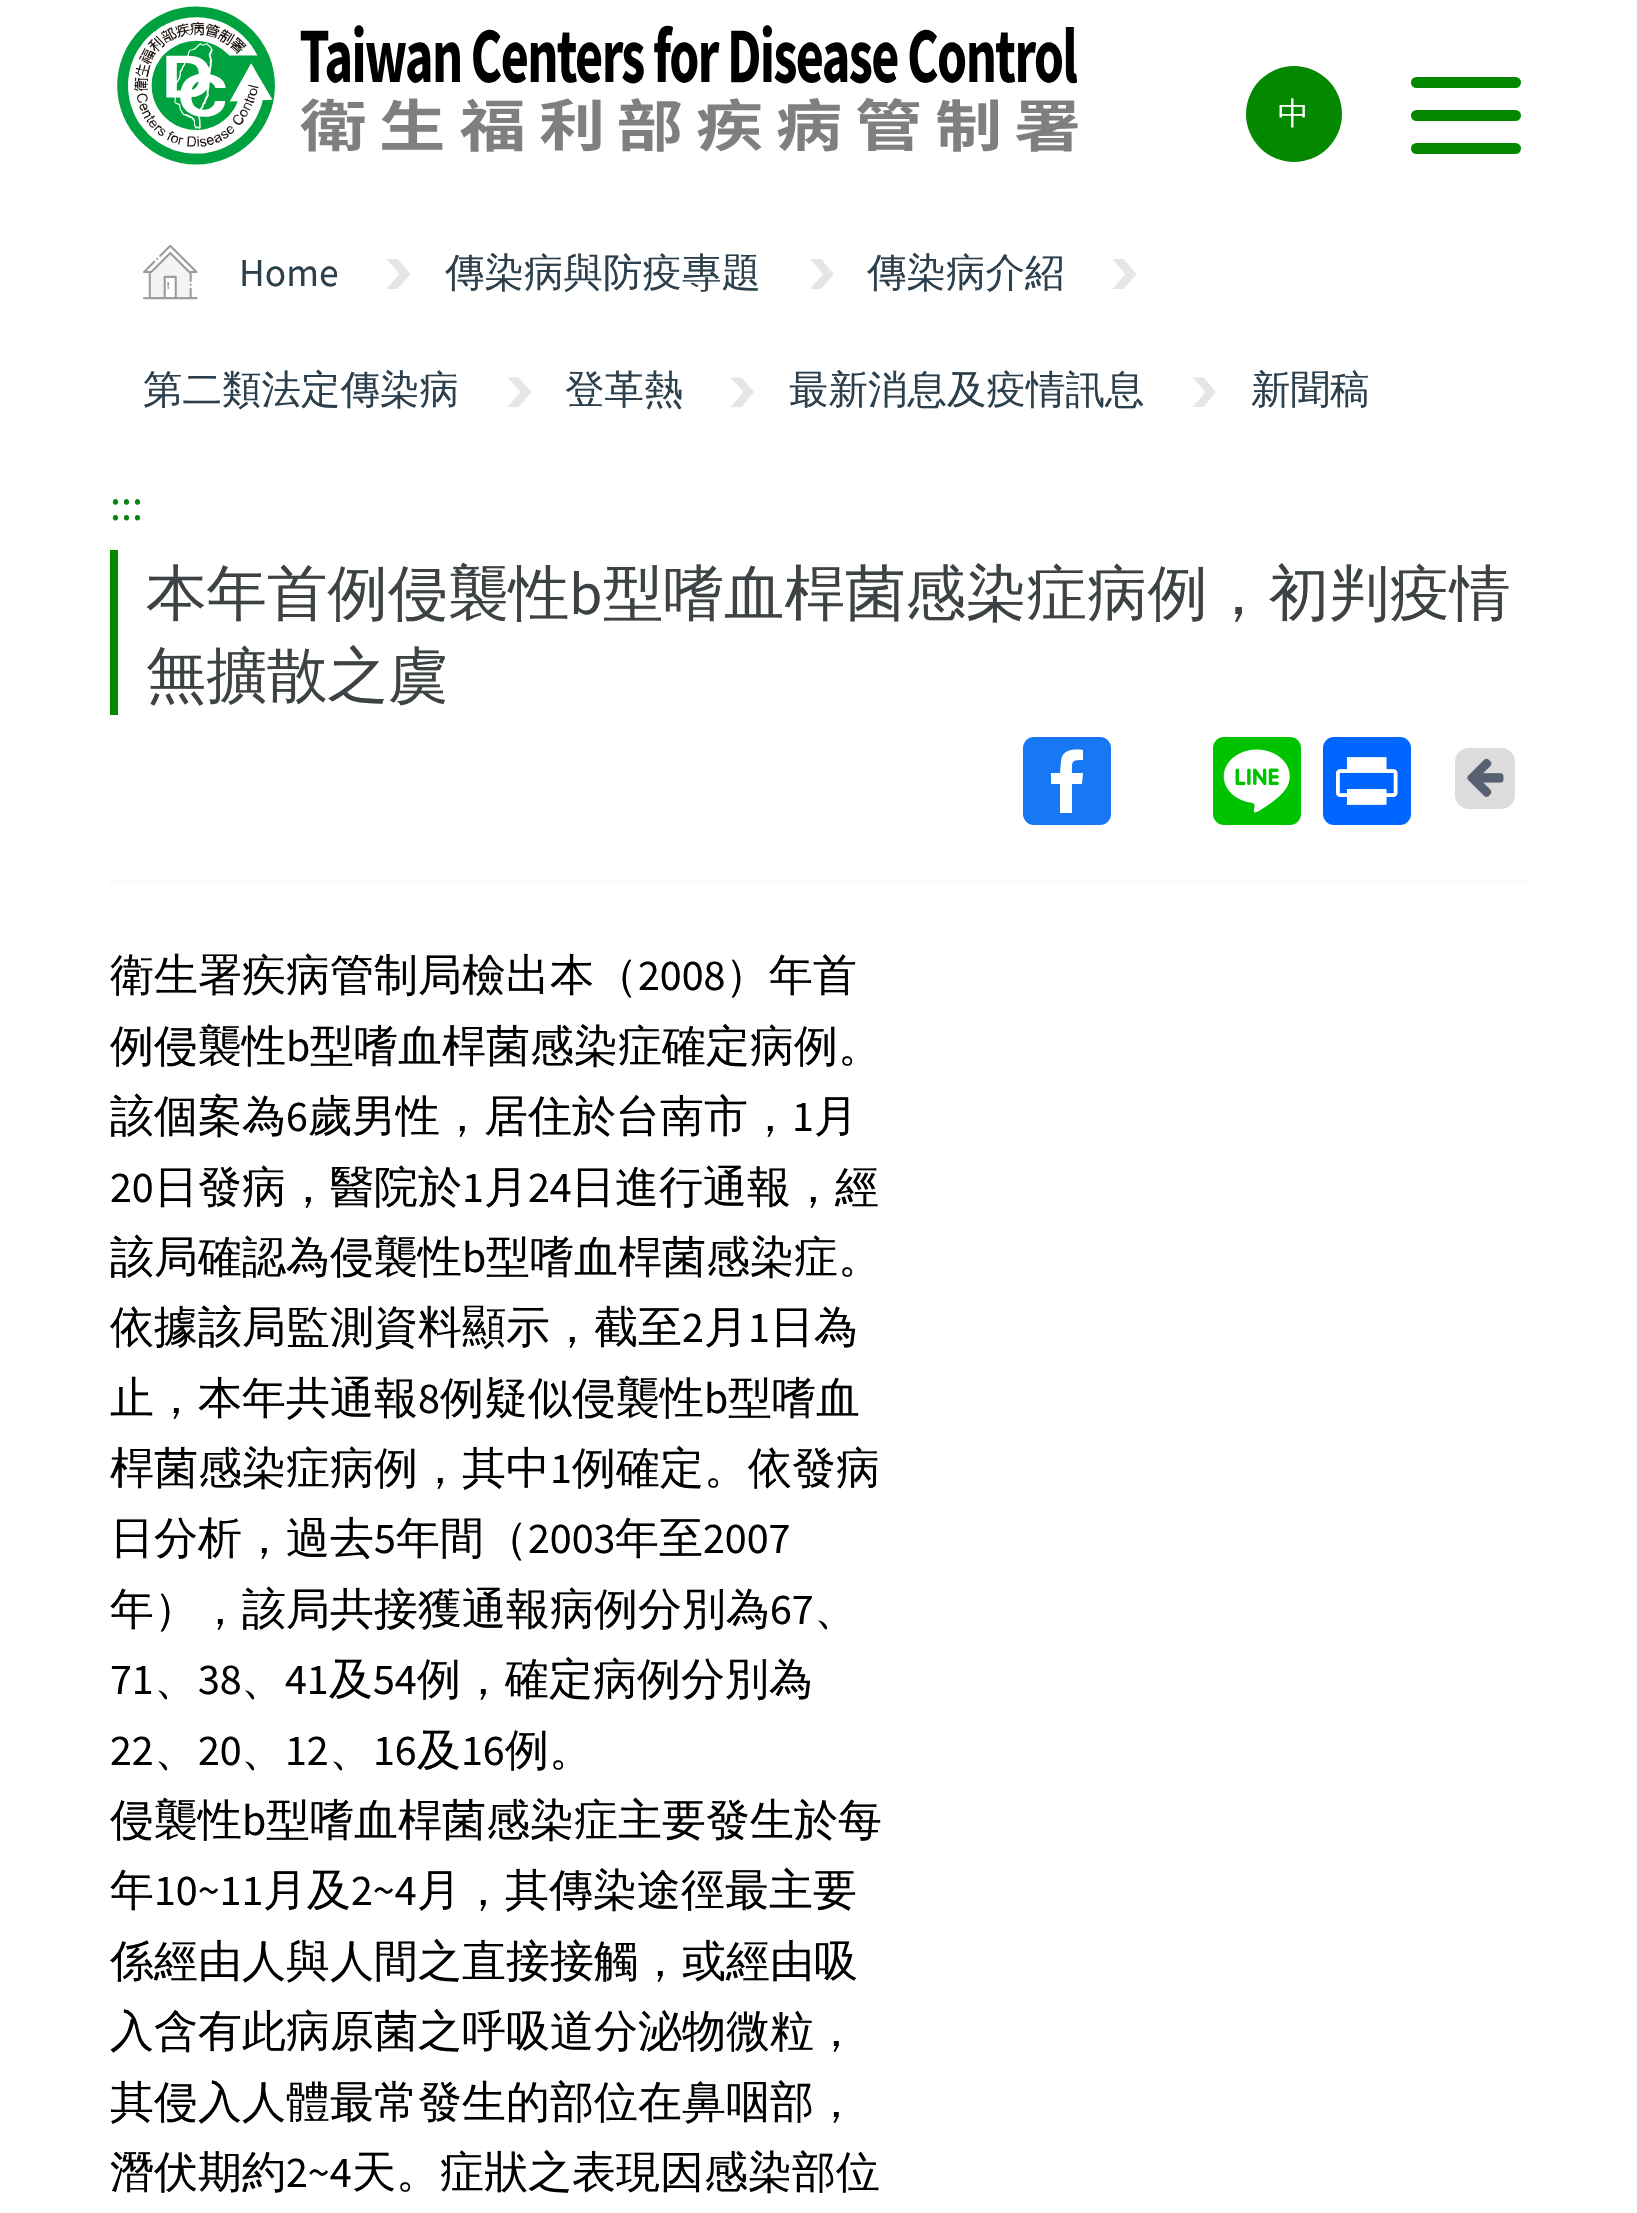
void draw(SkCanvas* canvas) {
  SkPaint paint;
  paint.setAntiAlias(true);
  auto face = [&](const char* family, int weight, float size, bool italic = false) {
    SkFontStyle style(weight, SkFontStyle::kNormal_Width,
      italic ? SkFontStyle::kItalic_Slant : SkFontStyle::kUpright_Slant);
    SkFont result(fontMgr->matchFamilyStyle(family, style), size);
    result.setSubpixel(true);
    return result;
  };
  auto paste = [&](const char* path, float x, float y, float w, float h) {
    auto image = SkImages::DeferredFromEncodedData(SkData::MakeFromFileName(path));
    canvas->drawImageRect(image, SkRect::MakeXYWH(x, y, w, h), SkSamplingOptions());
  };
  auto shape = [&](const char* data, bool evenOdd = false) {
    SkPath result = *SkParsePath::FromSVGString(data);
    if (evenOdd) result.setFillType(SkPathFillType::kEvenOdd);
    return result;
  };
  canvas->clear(0xffffffff);
  paste("img/1.png", 117, 6, 961, 159);
  paint.setColor(0xff048800);
  canvas->drawCircle(1294, 114, 48, paint);
  canvas->drawRoundRect(SkRect::MakeXYWH(1411, 77, 110, 11), 5.5f, 5.5f, paint);
  canvas->drawRoundRect(SkRect::MakeXYWH(1411, 110, 110, 11), 5.5f, 5.5f, paint);
  canvas->drawRoundRect(SkRect::MakeXYWH(1411, 143, 110, 11), 5.5f, 5.5f, paint);
  paste("img/2.png", 143, 245, 55, 55);
  paint.setColor(0xffe5e5e5);
  canvas->drawPath(shape("M397.5 259H386.5L399.5 274L386.5 289H397.5L410.5 274Z"), paint);
  canvas->drawPath(shape("M821 259H810L823 274L810 289H821L834 274Z"), paint);
  canvas->drawPath(shape("M1123.5 259H1112.5L1125.5 274L1112.5 289H1123.5L1136.5 274Z"), paint);
  canvas->drawPath(shape("M518.5 377.5H507.5L520.5 392L507.5 407H518.5L531.5 392Z"), paint);
  canvas->drawPath(shape("M741.5 377.5H730.5L743.5 392L730.5 407H741.5L754 392Z"), paint);
  canvas->drawPath(shape("M1203.5 377.5H1192.5L1205.5 392L1192.5 407H1203.5L1216 392Z"), paint);
  paint.setColor(0xff048800);
  canvas->drawRect(SkRect::MakeXYWH(110, 550, 8, 165), paint);
  paint.setColor(0xff1877f2);
  canvas->drawRoundRect(SkRect::MakeXYWH(1023, 737, 88, 88), 11, 11, paint);
  paint.setColor(0xffffffff);
  canvas->drawPath(shape("M1072 813V784H1082L1083 773H1072C1072 761 1071 760 1083 760V750C1074 749 1062 749 1061 761L1060 773H1051V784H1060V813Z"), paint);
  paint.setColor(0xff00c300);
  canvas->drawRoundRect(SkRect::MakeXYWH(1213, 737, 88, 88), 11, 11, paint);
  paste("img/3.png", 1223, 749, 67, 64);
  paint.setColor(0xff0166ff);
  canvas->drawRoundRect(SkRect::MakeXYWH(1323, 737, 88, 88), 11, 11, paint);
  paste("img/4.png", 1336, 757, 62, 48);
  paint.setColor(0xffdcdcdc);
  canvas->drawRoundRect(SkRect::MakeXYWH(1455, 748, 60, 61), 14, 14, paint);
  paste("img/5.png", 1467, 758, 37, 39);
  paint.setColor(0xfffbfbfb);
  canvas->drawRect(SkRect::MakeXYWH(110, 880, 1419, 6), paint);
  auto f0 = face("WenQuanYi Zen Hei", 500, 31);
  paint.setColor(0xffffffff);
  canvas->drawString("中", 1278, 124, f0, paint);
  auto f1 = face("Source Sans Pro", 400, 39.5f);
  paint.setColor(0xff2c3f4c);
  canvas->drawString("Home", 239, 286, f1, paint);
  auto f2 = face("WenQuanYi Zen Hei", 500, 39.5f);
  {
    const struct { const char* s; float x, y; } items[] = {
      {"傳染病與防疫專題", 445, 286},
      {"傳染病介紹", 867, 286},
      {"第二類法定傳染病", 143, 403},
      {"登革熱", 565, 403},
      {"最新消息及疫情訊息", 789, 403},
      {"新聞稿", 1251, 403},
    };
    for (auto [s, x, y] : items) {
      canvas->drawString(s, x, y, f2, paint);
    }
  }
  auto f3 = face("Source Sans Pro", 400, 44);
  paint.setColor(0xff068511);
  canvas->drawString(":::", 110, 520, f3, paint);
  auto f4 = face("WenQuanYi Zen Hei", 500, 60.5f);
  paint.setColor(0xff3d4245);
  canvas->drawString("本年首例侵襲性", 146, 614, f4, paint);
  auto f5 = face("Source Sans Pro", 400, 60.5f);
  canvas->drawString("b", 569, 614, f5, paint);
  canvas->drawString("型嗜血桿菌感染症病例，初判疫情", 603, 614, f4, paint);
  canvas->drawString("無擴散之虞", 146, 696, f4, paint);
  auto f6 = face("WenQuanYi Zen Hei", 500, 44);
  paint.setColor(0xff000000);
  canvas->drawString("衛生署疾病管制局檢出本（", 110, 990, f6, paint);
  canvas->drawString("2008", 638, 990, f3, paint);
  canvas->drawString("）年首", 725, 990, f6, paint);
  canvas->drawString("例侵襲性", 110, 1061, f6, paint);
  canvas->drawString("b", 286, 1061, f3, paint);
  canvas->drawString("型嗜血桿菌感染症確定病例。", 310, 1061, f6, paint);
  canvas->drawString("該個案為", 110, 1131, f6, paint);
  canvas->drawString("6", 286, 1131, f3, paint);
  canvas->drawString("歲男性，居住於台南市，", 308, 1131, f6, paint);
  canvas->drawString("1", 792, 1131, f3, paint);
  canvas->drawString("月", 814, 1131, f6, paint);
  canvas->drawString("20", 110, 1202, f3, paint);
  canvas->drawString("日發病，醫院於", 154, 1202, f6, paint);
  canvas->drawString("1", 462, 1202, f3, paint);
  canvas->drawString("月", 484, 1202, f6, paint);
  canvas->drawString("24", 528, 1202, f3, paint);
  canvas->drawString("日進行通報，經", 571, 1202, f6, paint);
  canvas->drawString("該局確認為侵襲性", 110, 1272, f6, paint);
  canvas->drawString("b", 462, 1272, f3, paint);
  canvas->drawString("型嗜血桿菌感染症。", 486, 1272, f6, paint);
  canvas->drawString("依據該局監測資料顯示，截至", 110, 1342, f6, paint);
  canvas->drawString("2", 682, 1342, f3, paint);
  canvas->drawString("月", 704, 1342, f6, paint);
  canvas->drawString("1", 748, 1342, f3, paint);
  canvas->drawString("日為", 770, 1342, f6, paint);
  canvas->drawString("止，本年共通報", 110, 1413, f6, paint);
  canvas->drawString("8", 418, 1413, f3, paint);
  canvas->drawString("例疑似侵襲性", 440, 1413, f6, paint);
  canvas->drawString("b", 704, 1413, f3, paint);
  canvas->drawString("型嗜血", 728, 1413, f6, paint);
  canvas->drawString("桿菌感染症病例，其中", 110, 1483, f6, paint);
  canvas->drawString("1", 550, 1483, f3, paint);
  canvas->drawString("例確定。依發病", 572, 1483, f6, paint);
  canvas->drawString("日分析，過去", 110, 1553, f6, paint);
  canvas->drawString("5", 374, 1553, f3, paint);
  canvas->drawString("年間（", 396, 1553, f6, paint);
  canvas->drawString("2003", 528, 1553, f3, paint);
  canvas->drawString("年至", 615, 1553, f6, paint);
  canvas->drawString("2007", 703, 1553, f3, paint);
  canvas->drawString("年），該局共接獲通報病例分別為", 110, 1624, f6, paint);
  canvas->drawString("67", 770, 1624, f3, paint);
  canvas->drawString("、", 814, 1624, f6, paint);
  canvas->drawString("71", 110, 1694, f3, paint);
  canvas->drawString("、", 154, 1694, f6, paint);
  canvas->drawString("38", 198, 1694, f3, paint);
  canvas->drawString("、", 241, 1694, f6, paint);
  canvas->drawString("41", 285, 1694, f3, paint);
  canvas->drawString("及", 329, 1694, f6, paint);
  canvas->drawString("54", 373, 1694, f3, paint);
  canvas->drawString("例，確定病例分別為", 417, 1694, f6, paint);
  canvas->drawString("22", 110, 1765, f3, paint);
  canvas->drawString("、", 154, 1765, f6, paint);
  canvas->drawString("20", 198, 1765, f3, paint);
  canvas->drawString("、", 241, 1765, f6, paint);
  canvas->drawString("12", 285, 1765, f3, paint);
  canvas->drawString("、", 329, 1765, f6, paint);
  canvas->drawString("16", 373, 1765, f3, paint);
  canvas->drawString("及", 417, 1765, f6, paint);
  canvas->drawString("16", 461, 1765, f3, paint);
  canvas->drawString("例。", 505, 1765, f6, paint);
  canvas->drawString("侵襲性", 110, 1835, f6, paint);
  canvas->drawString("b", 242, 1835, f3, paint);
  canvas->drawString("型嗜血桿菌感染症主要發生於每", 266, 1835, f6, paint);
  canvas->drawString("年", 110, 1905, f6, paint);
  canvas->drawString("10~11", 154, 1905, f3, paint);
  canvas->drawString("月及", 263, 1905, f6, paint);
  canvas->drawString("2~4", 351, 1905, f3, paint);
  {
    const struct { const char* s; float x, y; } items[] = {
      {"月，其傳染途徑最主要", 417, 1905},
      {"係經由人與人間之直接接觸，或經由吸", 110, 1976},
      {"入含有此病原菌之呼吸道分泌物微粒，", 110, 2046},
      {"其侵入人體最常發生的部位在鼻咽部，", 110, 2117},
      {"潛伏期約", 110, 2187},
    };
    for (auto [s, x, y] : items) {
      canvas->drawString(s, x, y, f6, paint);
    }
  }
  canvas->drawString("2~4", 286, 2187, f3, paint);
  canvas->drawString("天。症狀之表現因感染部位", 352, 2187, f6, paint);
}
